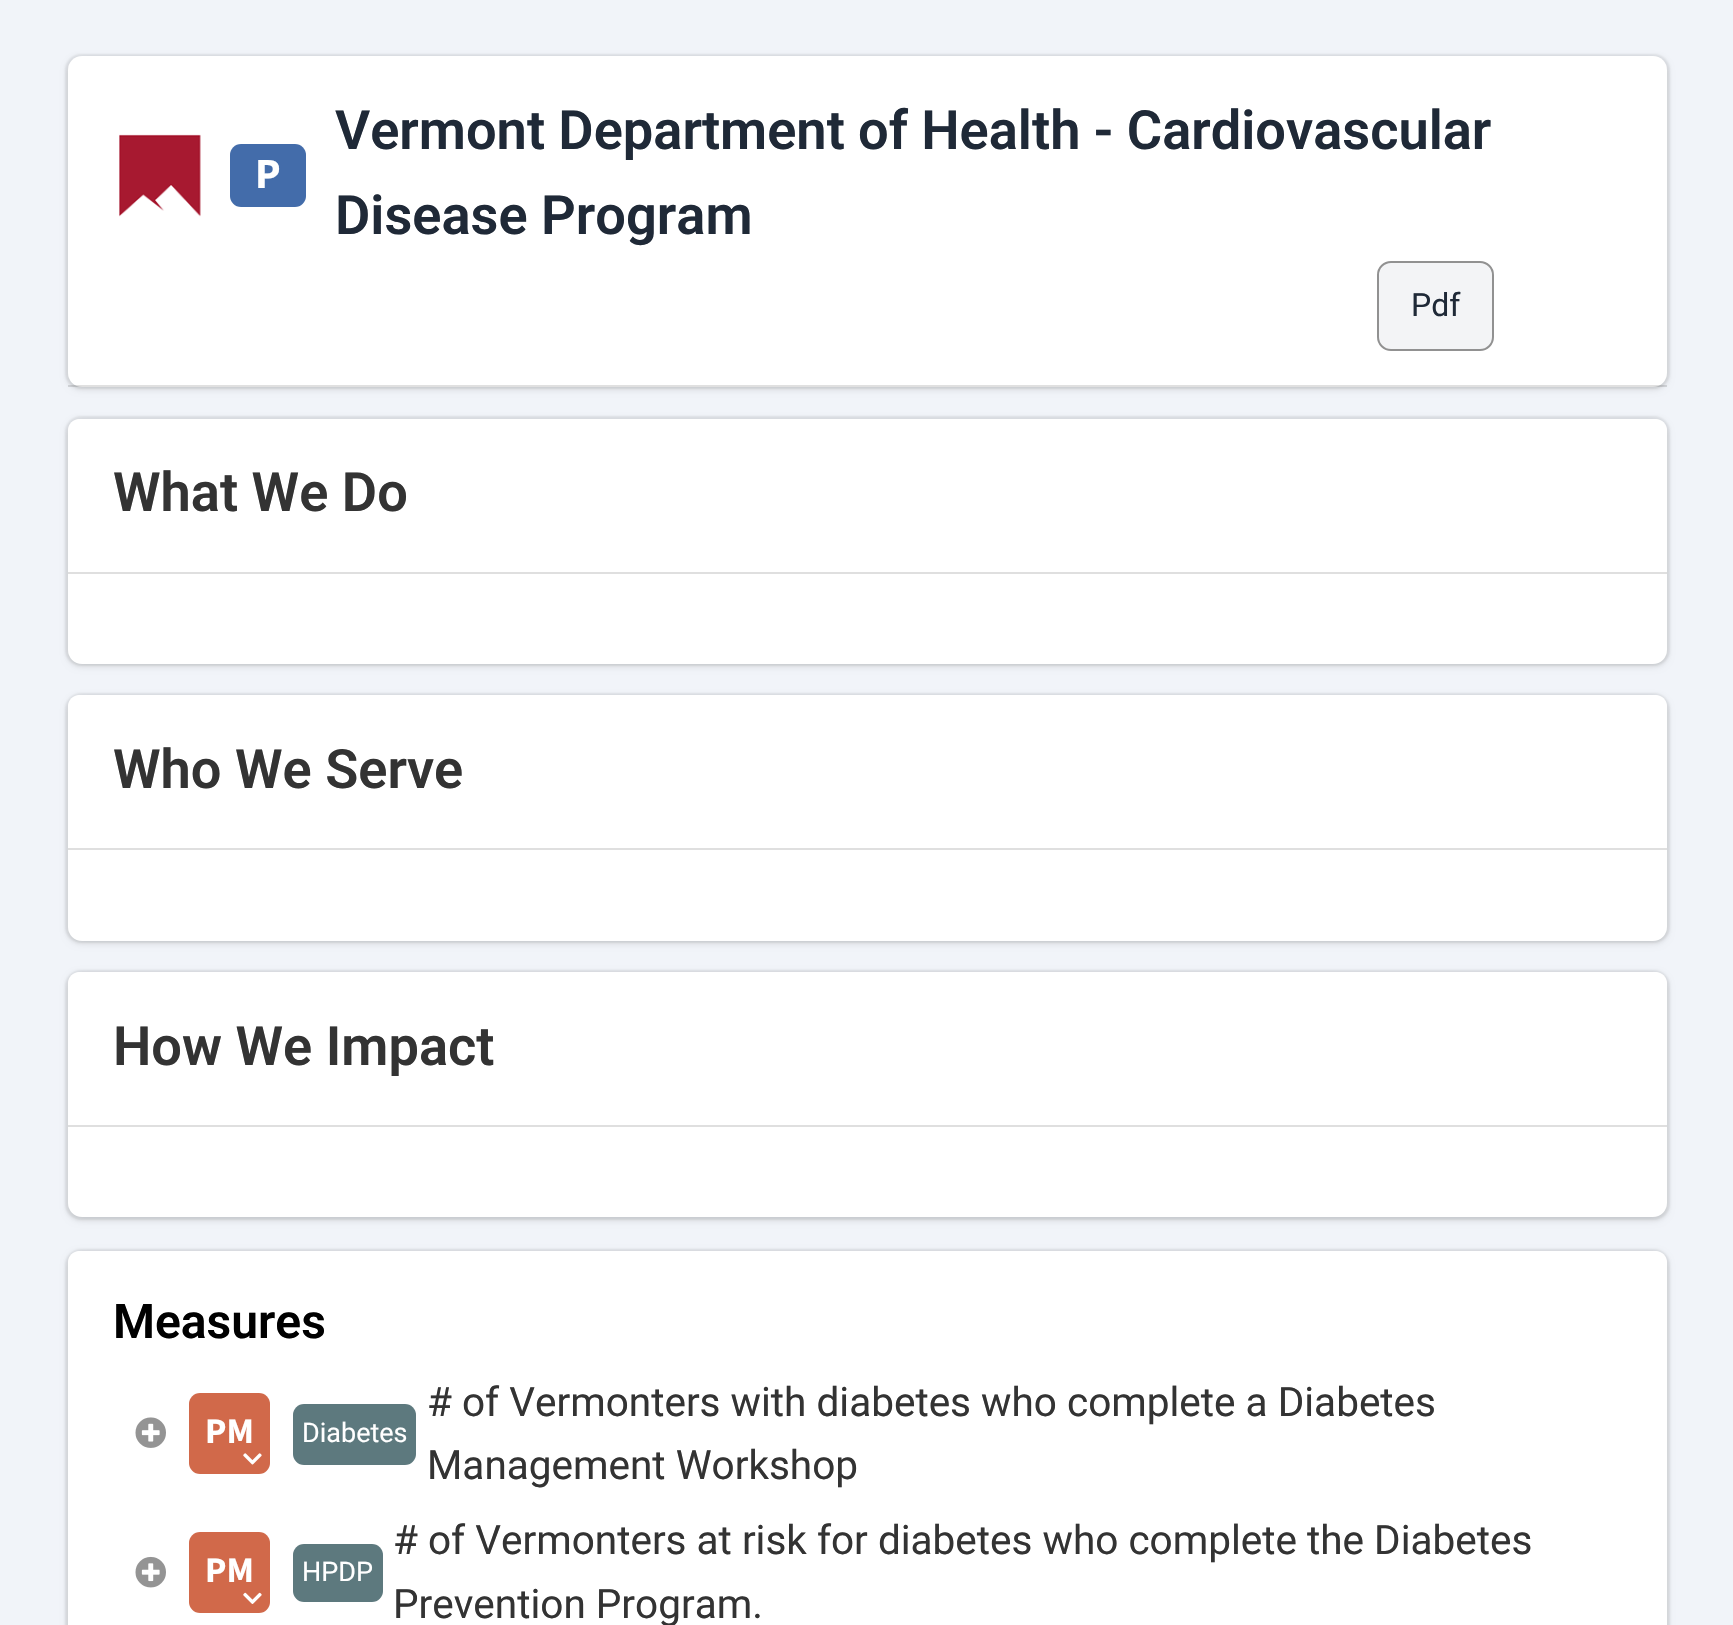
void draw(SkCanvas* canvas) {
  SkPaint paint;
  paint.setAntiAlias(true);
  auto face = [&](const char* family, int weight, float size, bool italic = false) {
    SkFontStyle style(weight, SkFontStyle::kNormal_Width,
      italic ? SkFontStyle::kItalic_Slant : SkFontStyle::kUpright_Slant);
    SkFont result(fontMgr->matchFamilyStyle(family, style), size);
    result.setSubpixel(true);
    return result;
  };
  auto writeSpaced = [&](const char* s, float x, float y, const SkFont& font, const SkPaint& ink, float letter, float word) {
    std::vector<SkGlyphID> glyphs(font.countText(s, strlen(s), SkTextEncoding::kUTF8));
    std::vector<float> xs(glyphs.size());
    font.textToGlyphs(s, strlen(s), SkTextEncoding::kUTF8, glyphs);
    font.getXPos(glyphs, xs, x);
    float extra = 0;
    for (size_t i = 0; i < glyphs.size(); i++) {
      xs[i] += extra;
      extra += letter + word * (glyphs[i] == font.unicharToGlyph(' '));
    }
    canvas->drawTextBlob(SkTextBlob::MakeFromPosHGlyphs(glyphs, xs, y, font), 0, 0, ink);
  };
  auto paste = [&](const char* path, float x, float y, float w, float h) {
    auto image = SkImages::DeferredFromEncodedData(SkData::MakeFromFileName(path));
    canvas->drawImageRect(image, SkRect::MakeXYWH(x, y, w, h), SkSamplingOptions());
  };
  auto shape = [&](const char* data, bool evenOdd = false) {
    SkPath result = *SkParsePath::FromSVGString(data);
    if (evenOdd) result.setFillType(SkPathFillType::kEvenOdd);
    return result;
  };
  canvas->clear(0xfff1f4f9);
  paint.setColor(0x1f000000);
  paint.setMaskFilter(SkMaskFilter::MakeBlur(kNormal_SkBlurStyle, 3.5f));
  canvas->drawRoundRect(SkRect::MakeXYWH(68, 59, 1599, 330), 14, 14, paint);
  paint.setMaskFilter(nullptr);
  paint.setColor(0x12000000);
  paint.setMaskFilter(SkMaskFilter::MakeBlur(kNormal_SkBlurStyle, 1));
  canvas->drawRoundRect(SkRect::MakeXYWH(65, 54, 1605, 335), 16, 16, paint);
  paint.setMaskFilter(nullptr);
  paint.setColor(0xffffffff);
  canvas->drawRoundRect(SkRect::MakeXYWH(68, 56, 1599, 331), 14, 14, paint);
  paint.setColor(0x1f000000);
  canvas->drawRect(SkRect::MakeXYWH(68, 385, 1599, 2), paint);
  paste("img/1.png", 119, 134, 82, 83);
  paint.setColor(0xff436caa);
  canvas->drawRoundRect(SkRect::MakeXYWH(230, 144, 76, 63), 11, 11, paint);
  paint.setColor(0xfff3f4f6);
  canvas->drawRoundRect(SkRect::MakeXYWH(1378, 262, 115, 88), 13, 13, paint);
  paint.setStroke(true);
  paint.setStrokeWidth(2);
  paint.setColor(0xff919191);
  canvas->drawRoundRect(SkRect::MakeXYWH(1378, 262, 115, 88), 13, 13, paint);
  paint.setStroke(false);
  paint.setColor(0x1f000000);
  paint.setMaskFilter(SkMaskFilter::MakeBlur(kNormal_SkBlurStyle, 3.5f));
  canvas->drawRoundRect(SkRect::MakeXYWH(68, 421, 1599, 245), 14, 14, paint);
  paint.setMaskFilter(nullptr);
  paint.setColor(0x12000000);
  paint.setMaskFilter(SkMaskFilter::MakeBlur(kNormal_SkBlurStyle, 1));
  canvas->drawRoundRect(SkRect::MakeXYWH(65, 416, 1605, 250), 16, 16, paint);
  paint.setMaskFilter(nullptr);
  paint.setColor(0xffffffff);
  canvas->drawRoundRect(SkRect::MakeXYWH(68, 419, 1599, 245), 14, 14, paint);
  canvas->drawPath(shape("M79 419H1656C1662 419 1667 424 1667 430V574H68V430C68 424 73 419 79 419Z"), paint);
  paint.setColor(0xffdfdfdf);
  canvas->drawRect(SkRect::MakeXYWH(68, 572, 1599, 2), paint);
  paint.setColor(0x1f000000);
  paint.setMaskFilter(SkMaskFilter::MakeBlur(kNormal_SkBlurStyle, 3.5f));
  canvas->drawRoundRect(SkRect::MakeXYWH(68, 698, 1599, 245), 14, 14, paint);
  paint.setMaskFilter(nullptr);
  paint.setColor(0x12000000);
  paint.setMaskFilter(SkMaskFilter::MakeBlur(kNormal_SkBlurStyle, 1));
  canvas->drawRoundRect(SkRect::MakeXYWH(65, 693, 1605, 250), 16, 16, paint);
  paint.setMaskFilter(nullptr);
  paint.setColor(0xffffffff);
  canvas->drawRoundRect(SkRect::MakeXYWH(68, 695, 1599, 246), 14, 14, paint);
  canvas->drawPath(shape("M79 695H1656C1662 695 1667 700 1667 706V851H68V706C68 700 73 695 79 695Z"), paint);
  paint.setColor(0xffdfdfdf);
  canvas->drawRect(SkRect::MakeXYWH(68, 848, 1599, 2), paint);
  paint.setColor(0x1f000000);
  paint.setMaskFilter(SkMaskFilter::MakeBlur(kNormal_SkBlurStyle, 3.5f));
  canvas->drawRoundRect(SkRect::MakeXYWH(68, 974, 1599, 246), 14, 14, paint);
  paint.setMaskFilter(nullptr);
  paint.setColor(0x12000000);
  paint.setMaskFilter(SkMaskFilter::MakeBlur(kNormal_SkBlurStyle, 1));
  canvas->drawRoundRect(SkRect::MakeXYWH(65, 970, 1605, 250), 16, 16, paint);
  paint.setMaskFilter(nullptr);
  paint.setColor(0xffffffff);
  canvas->drawRoundRect(SkRect::MakeXYWH(68, 972, 1599, 245), 14, 14, paint);
  canvas->drawPath(shape("M79 972H1656C1662 972 1667 977 1667 983V1127H68V983C68 977 73 972 79 972Z"), paint);
  paint.setColor(0xffdfdfdf);
  canvas->drawRect(SkRect::MakeXYWH(68, 1125, 1599, 2), paint);
  paint.setColor(0x1f000000);
  paint.setMaskFilter(SkMaskFilter::MakeBlur(kNormal_SkBlurStyle, 3.5f));
  canvas->drawRoundRect(SkRect::MakeXYWH(68, 1253, 1599, 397), 14, 14, paint);
  paint.setMaskFilter(nullptr);
  paint.setColor(0x12000000);
  paint.setMaskFilter(SkMaskFilter::MakeBlur(kNormal_SkBlurStyle, 1));
  canvas->drawRoundRect(SkRect::MakeXYWH(65, 1249, 1605, 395), 16, 16, paint);
  paint.setMaskFilter(nullptr);
  paint.setColor(0xffffffff);
  canvas->drawRoundRect(SkRect::MakeXYWH(68, 1251, 1599, 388), 14, 14, paint);
  canvas->drawPath(shape("M79 1251H1656C1662 1251 1667 1256 1667 1262V1359H68V1262C68 1256 73 1251 79 1251Z"), paint);
  paste("img/2.png", 135, 1417, 31, 31);
  paint.setColor(0xffd1694a);
  canvas->drawRoundRect(SkRect::MakeXYWH(189, 1393, 81, 81), 11, 11, paint);
  paste("img/3.png", 243, 1453, 19, 12);
  paint.setColor(0xff5d797e);
  canvas->drawRoundRect(SkRect::MakeXYWH(293, 1404, 123, 61), 11, 11, paint);
  paste("img/4.png", 135, 1556, 31, 32);
  paint.setColor(0xffd1694a);
  canvas->drawRoundRect(SkRect::MakeXYWH(189, 1532, 81, 81), 11, 11, paint);
  paste("img/5.png", 243, 1592, 19, 12);
  paint.setColor(0xff5d797e);
  canvas->drawRoundRect(SkRect::MakeXYWH(293, 1544, 90, 58), 11, 11, paint);
  auto f0 = face("Source Sans Pro", 700, 43);
  paint.setColor(0xffffffff);
  canvas->drawString("P", 255, 188, f0, paint);
  auto f1 = face("Roboto", 600, 54.2f);
  paint.setColor(0xff1f2937);
  writeSpaced("Vermont Department of Health - Cardiovascular", 335, 149, f1, paint, 0, -0.25f);
  canvas->drawString("Disease Program", 335, 234, f1, paint);
  auto f2 = face("Roboto", 400, 32);
  canvas->drawString("Pdf", 1411, 316, f2, paint);
  paint.setColor(0xff333333);
  {
    const struct { const char* s; float x, y; } items[] = {
      {"What We Do", 113, 511},
      {"Who We Serve", 113, 788},
      {"How We Impact", 113, 1065},
    };
    for (auto [s, x, y] : items) {
      canvas->drawString(s, x, y, f1, paint);
    }
  }
  auto f3 = face("Roboto", 600, 48);
  paint.setColor(0xff000000);
  canvas->drawString("Measures", 113, 1338, f3, paint);
  auto f4 = face("Source Sans Pro", 700, 36);
  paint.setColor(0xffffffff);
  canvas->drawString("PM", 205, 1443, f4, paint);
  auto f5 = face("Roboto", 400, 27);
  canvas->drawString("Diabetes", 302, 1442, f5, paint);
  auto f6 = face("Roboto", 400, 40.5f);
  paint.setColor(0xff333333);
  canvas->drawString("# of Vermonters with diabetes who complete a Diabetes", 427, 1416, f6, paint);
  canvas->drawString("Management Workshop", 427, 1479, f6, paint);
  paint.setColor(0xffffffff);
  canvas->drawString("PM", 205, 1582, f4, paint);
  canvas->drawString("HPDP", 302, 1581, f5, paint);
  paint.setColor(0xff333333);
  canvas->drawString("# of Vermonters at risk for diabetes who complete the Diabetes", 393, 1554, f6, paint);
  canvas->drawString("Prevention Program.", 393, 1618, f6, paint);
}
